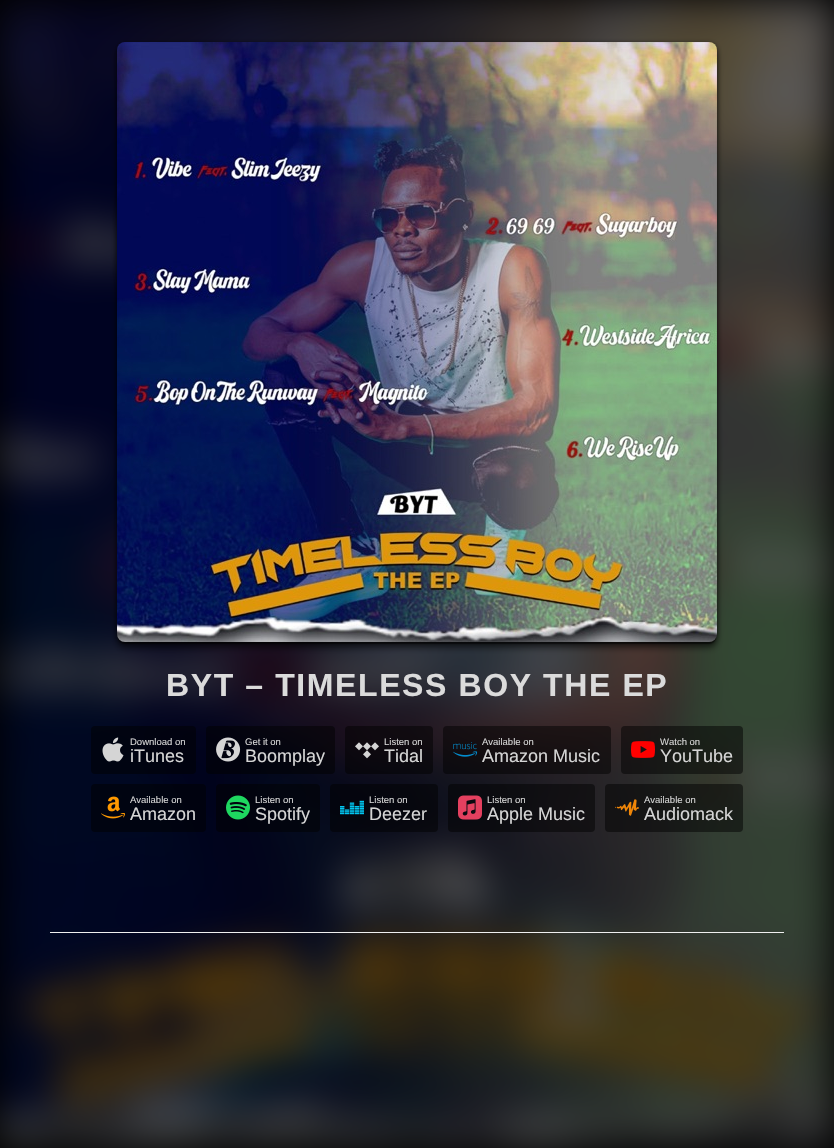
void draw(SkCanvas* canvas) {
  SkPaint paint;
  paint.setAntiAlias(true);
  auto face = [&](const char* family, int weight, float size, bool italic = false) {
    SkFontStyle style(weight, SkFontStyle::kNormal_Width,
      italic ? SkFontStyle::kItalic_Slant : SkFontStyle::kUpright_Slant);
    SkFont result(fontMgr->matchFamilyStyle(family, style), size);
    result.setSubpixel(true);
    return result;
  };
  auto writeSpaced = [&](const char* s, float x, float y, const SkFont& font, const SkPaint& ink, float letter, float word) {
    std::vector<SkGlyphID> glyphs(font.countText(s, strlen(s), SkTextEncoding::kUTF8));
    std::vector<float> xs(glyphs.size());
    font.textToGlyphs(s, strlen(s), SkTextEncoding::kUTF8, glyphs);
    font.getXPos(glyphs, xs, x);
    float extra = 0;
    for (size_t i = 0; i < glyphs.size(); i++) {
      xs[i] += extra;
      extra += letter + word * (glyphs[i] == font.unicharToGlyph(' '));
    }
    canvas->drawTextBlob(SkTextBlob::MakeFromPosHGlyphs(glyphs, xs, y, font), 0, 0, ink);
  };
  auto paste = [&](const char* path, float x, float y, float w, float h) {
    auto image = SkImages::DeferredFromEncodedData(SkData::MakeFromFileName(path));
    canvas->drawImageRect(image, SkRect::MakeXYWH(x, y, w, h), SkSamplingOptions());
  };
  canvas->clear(0xff000000);
  paste("img/1.png", 0, 0, 834, 1148);
  paint.setColor(0x80000000);
  paint.setMaskFilter(SkMaskFilter::MakeBlur(kNormal_SkBlurStyle, 2.5f));
  canvas->drawRoundRect(SkRect::MakeXYWH(117, 43, 600, 600), 8, 8, paint);
  paint.setMaskFilter(nullptr);
  paint.setMaskFilter(SkMaskFilter::MakeBlur(kNormal_SkBlurStyle, 0.5f));
  canvas->drawRoundRect(SkRect::MakeXYWH(118, 46, 598, 598), 7, 7, paint);
  paint.setMaskFilter(nullptr);
  paint.setMaskFilter(SkMaskFilter::MakeBlur(kNormal_SkBlurStyle, 3));
  canvas->drawRoundRect(SkRect::MakeXYWH(117, 48, 600, 600), 8, 8, paint);
  paint.setMaskFilter(nullptr);
  paste("img/2.png", 117, 42, 600, 600);
  canvas->drawRoundRect(SkRect::MakeXYWH(91, 726, 105, 48), 4, 4, paint);
  paste("img/3.png", 102, 737, 22, 25);
  canvas->drawRoundRect(SkRect::MakeXYWH(206, 726, 129, 48), 4, 4, paint);
  paste("img/4.png", 216, 737, 25, 25);
  canvas->drawRoundRect(SkRect::MakeXYWH(345, 726, 88, 48), 4, 4, paint);
  paste("img/5.png", 355, 742, 24, 17);
  canvas->drawRoundRect(SkRect::MakeXYWH(443, 726, 168, 48), 4, 4, paint);
  paste("img/6.png", 453, 742, 25, 15);
  canvas->drawRoundRect(SkRect::MakeXYWH(621, 726, 122, 48), 4, 4, paint);
  paste("img/7.png", 631, 741, 24, 17);
  canvas->drawRoundRect(SkRect::MakeXYWH(91, 784, 115, 48), 4, 4, paint);
  paste("img/8.png", 101, 796, 24, 23);
  canvas->drawRoundRect(SkRect::MakeXYWH(216, 784, 104, 48), 4, 4, paint);
  paste("img/9.png", 226, 795, 24, 25);
  canvas->drawRoundRect(SkRect::MakeXYWH(330, 784, 108, 48), 4, 4, paint);
  paste("img/10.png", 340, 800, 24, 15);
  canvas->drawRoundRect(SkRect::MakeXYWH(448, 784, 147, 48), 4, 4, paint);
  paste("img/11.png", 458, 795, 24, 25);
  canvas->drawRoundRect(SkRect::MakeXYWH(605, 784, 138, 48), 4, 4, paint);
  paste("img/12.png", 615, 799, 24, 17);
  paint.setColor(0xffefefef);
  canvas->drawRect(SkRect::MakeXYWH(50, 932, 734, 1), paint);
  auto f0 = face("Liberation Sans", 700, 32);
  paint.setColor(0xffdbdbdb);
  writeSpaced("BYT – TIMELESS BOY THE EP", 166, 696, f0, paint, 1.6f, 0);
  auto f1 = face("Liberation Sans", 400, 9.5f);
  paint.setColor(0xffd5d5d5);
  canvas->drawString("Download on", 130, 745, f1, paint);
  auto f2 = face("Liberation Sans", 400, 18);
  canvas->drawString("iTunes", 130, 762, f2, paint);
  canvas->drawString("Get it on", 245, 745, f1, paint);
  canvas->drawString("Boomplay", 245, 762, f2, paint);
  canvas->drawString("Listen on", 384, 745, f1, paint);
  canvas->drawString("Tidal", 384, 762, f2, paint);
  canvas->drawString("Available on", 482, 745, f1, paint);
  canvas->drawString("Amazon Music", 482, 762, f2, paint);
  canvas->drawString("Watch on", 660, 745, f1, paint);
  canvas->drawString("YouTube", 660, 762, f2, paint);
  canvas->drawString("Available on", 130, 803, f1, paint);
  canvas->drawString("Amazon", 130, 820, f2, paint);
  canvas->drawString("Listen on", 255, 803, f1, paint);
  canvas->drawString("Spotify", 255, 820, f2, paint);
  canvas->drawString("Listen on", 369, 803, f1, paint);
  canvas->drawString("Deezer", 369, 820, f2, paint);
  canvas->drawString("Listen on", 487, 803, f1, paint);
  canvas->drawString("Apple Music", 487, 820, f2, paint);
  canvas->drawString("Available on", 644, 803, f1, paint);
  canvas->drawString("Audiomack", 644, 820, f2, paint);
}
